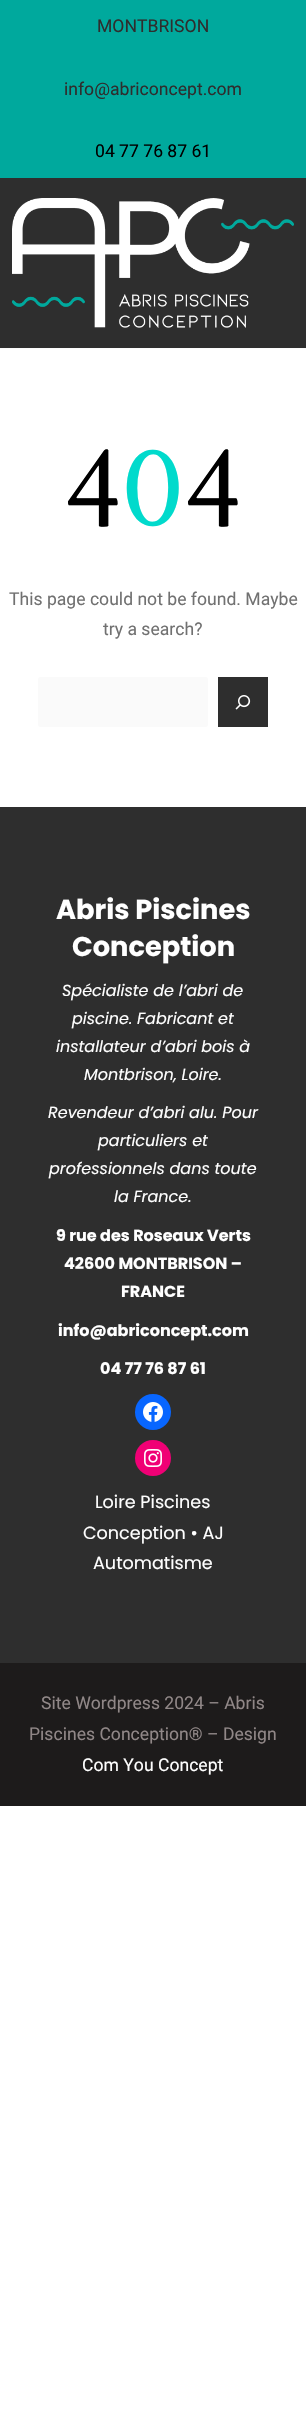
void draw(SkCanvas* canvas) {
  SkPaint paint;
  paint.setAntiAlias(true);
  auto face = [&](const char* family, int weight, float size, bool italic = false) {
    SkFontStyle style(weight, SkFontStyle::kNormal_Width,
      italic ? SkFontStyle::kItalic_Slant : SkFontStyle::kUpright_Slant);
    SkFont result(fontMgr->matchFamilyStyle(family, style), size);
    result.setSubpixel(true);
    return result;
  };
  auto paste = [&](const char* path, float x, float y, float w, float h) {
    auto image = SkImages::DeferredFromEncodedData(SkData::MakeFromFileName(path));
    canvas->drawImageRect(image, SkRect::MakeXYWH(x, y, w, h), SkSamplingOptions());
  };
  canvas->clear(0xffffffff);
  {
    const struct { float x, y, w, h; SkColor color; } items[] = {
      {0, 0, 306, 178, 0xff00a99d},
      {0, 178, 306, 170, 0xff2e2e2e},
      {0, 348, 306, 1, 0xfffbfbfb},
    };
    for (auto [x, y, w, h, color] : items) {
      paint.setColor(color);
      canvas->drawRect(SkRect::MakeXYWH(x, y, w, h), paint);
    }
  }
  paste("img/1.png", 12, 198, 282, 130);
  paint.setColor(0xfffafafa);
  canvas->drawRoundRect(SkRect::MakeXYWH(38, 677, 170, 50), 3, 3, paint);
  paint.setColor(0xff2e2e2e);
  canvas->drawRect(SkRect::MakeXYWH(218, 677, 50, 50), paint);
  paste("img/2.png", 235, 695, 16, 15);
  canvas->drawRect(SkRect::MakeXYWH(0, 807, 306, 856), paint);
  paint.setColor(0xff0866ff);
  canvas->drawCircle(153, 1412, 18, paint);
  paste("img/3.png", 143, 1402, 20, 20);
  paint.setColor(0xfff00075);
  canvas->drawCircle(153, 1458, 18, paint);
  paste("img/4.png", 144, 1449, 18, 18);
  paint.setColor(0xff1d1b1b);
  canvas->drawRect(SkRect::MakeXYWH(0, 1663, 306, 143), paint);
  auto f0 = face("Roboto", 400, 17.6f);
  paint.setColor(0xff2e2e2e);
  canvas->drawString("MONTBRISON", 97, 32, f0, paint);
  canvas->drawString("info@abriconcept.com", 64, 95, f0, paint);
  paint.setColor(0xff000000);
  canvas->drawString("04 77 76 87 61", 95, 157, f0, paint);
  auto f1 = face("Crimson Text", 400, 122);
  canvas->drawString("4", 64, 526, f1, paint);
  paint.setColor(0xff01dacc);
  canvas->drawString("0", 122, 526, f1, paint);
  paint.setColor(0xff000000);
  canvas->drawString("4", 184, 526, f1, paint);
  paint.setColor(0xff717171);
  canvas->drawString("This page could not be found. Maybe", 9, 605, f0, paint);
  canvas->drawString("try a search?", 103, 635, f0, paint);
  auto f2 = face("Poppins", 700, 27.25f);
  paint.setColor(0xffffffff);
  canvas->drawString("Abris Piscines", 56, 919, f2, paint);
  canvas->drawString("Conception", 72, 956, f2, paint);
  auto f3 = face("Poppins", 400, 16, true);
  {
    const struct { const char* s; float x, y; } items[] = {
      {"Spécialiste de l’abri de", 62, 996},
      {"piscine. Fabricant et", 72, 1024},
      {"installateur d’abri bois à", 56, 1052},
      {"Montbrison, Loire.", 84, 1080},
      {"Revendeur d’abri alu. Pour", 48, 1118},
      {"particuliers et", 98, 1146},
      {"professionnels dans toute", 49, 1174},
      {"la France.", 114, 1202},
    };
    for (auto [s, x, y] : items) {
      canvas->drawString(s, x, y, f3, paint);
    }
  }
  auto f4 = face("Poppins", 700, 16);
  {
    const struct { const char* s; float x, y; } items[] = {
      {"9 rue des Roseaux Verts", 56, 1241},
      {"42600 MONTBRISON –", 64, 1269},
      {"FRANCE", 121, 1297},
      {"info@abriconcept.com", 58, 1336},
      {"04 77 76 87 61", 100, 1374},
    };
    for (auto [s, x, y] : items) {
      canvas->drawString(s, x, y, f4, paint);
    }
  }
  auto f5 = face("Poppins", 400, 17.6f);
  {
    const struct { const char* s; float x, y; } items[] = {
      {"Loire Piscines", 95, 1508},
      {"Conception • AJ", 83, 1539},
      {"Automatisme", 93, 1569},
    };
    for (auto [s, x, y] : items) {
      canvas->drawString(s, x, y, f5, paint);
    }
  }
  paint.setColor(0xff908787);
  canvas->drawString("Site Wordpress 2024 – Abris", 41, 1709, f0, paint);
  canvas->drawString("Piscines Conception® – Design", 29, 1740, f0, paint);
  paint.setColor(0xffffffff);
  canvas->drawString("Com You Concept", 82, 1771, f0, paint);
}
